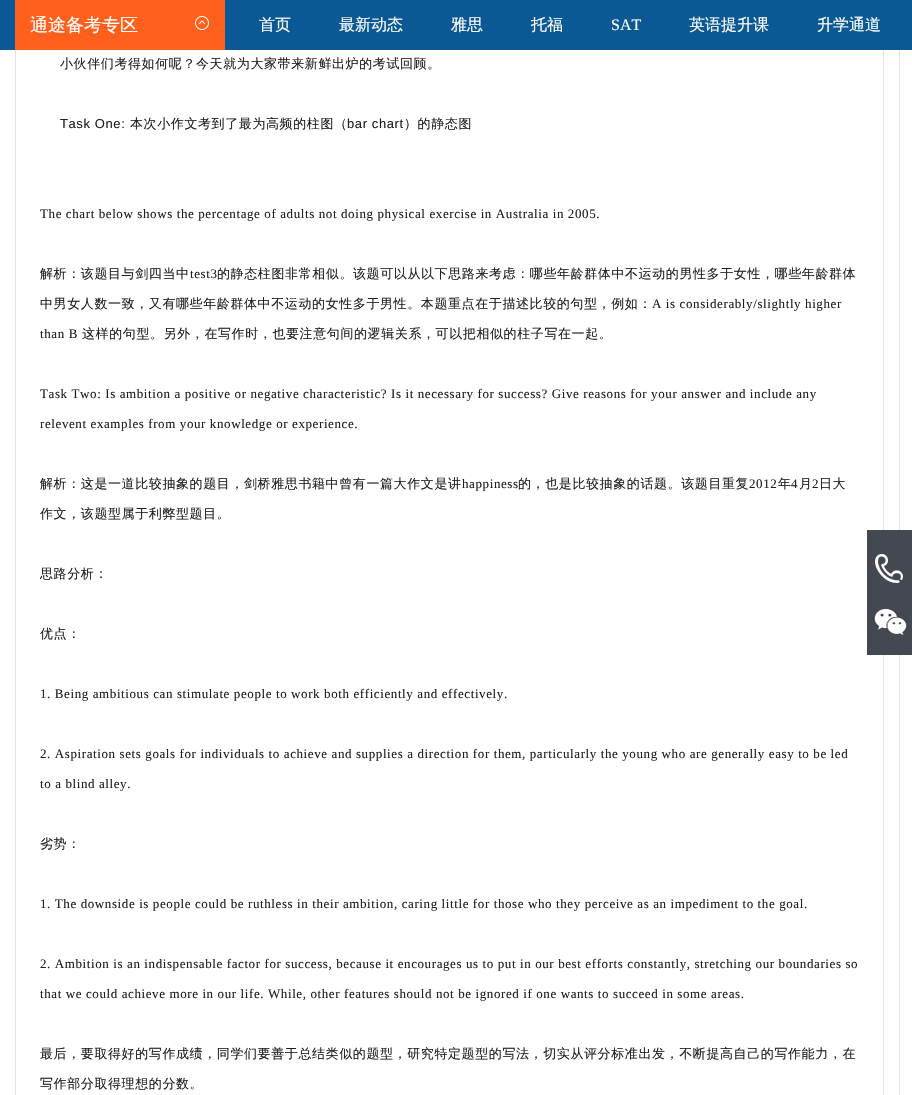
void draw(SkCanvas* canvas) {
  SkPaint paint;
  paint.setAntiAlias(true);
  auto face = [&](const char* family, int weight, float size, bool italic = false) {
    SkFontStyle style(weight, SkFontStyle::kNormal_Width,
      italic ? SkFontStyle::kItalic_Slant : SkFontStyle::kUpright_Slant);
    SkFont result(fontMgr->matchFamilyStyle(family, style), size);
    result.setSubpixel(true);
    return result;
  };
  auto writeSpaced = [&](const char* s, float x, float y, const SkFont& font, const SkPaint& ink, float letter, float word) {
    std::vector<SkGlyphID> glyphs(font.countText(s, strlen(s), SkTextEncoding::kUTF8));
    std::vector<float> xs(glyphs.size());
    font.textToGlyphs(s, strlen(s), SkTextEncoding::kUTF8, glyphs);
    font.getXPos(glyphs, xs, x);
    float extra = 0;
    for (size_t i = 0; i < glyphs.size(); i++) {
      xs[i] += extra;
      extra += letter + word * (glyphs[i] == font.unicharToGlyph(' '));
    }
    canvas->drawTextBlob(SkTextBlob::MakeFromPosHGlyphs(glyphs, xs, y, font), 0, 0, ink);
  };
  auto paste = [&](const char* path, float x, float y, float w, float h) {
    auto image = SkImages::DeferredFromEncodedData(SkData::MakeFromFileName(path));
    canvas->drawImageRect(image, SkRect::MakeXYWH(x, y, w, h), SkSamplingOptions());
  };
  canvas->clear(0xffffffff);
  paint.setStroke(true);
  paint.setStrokeWidth(1);
  paint.setColor(0xffe2e2e2);
  canvas->drawRect(SkRect::MakeXYWH(15.5f, 13.5f, 868, 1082), paint);
  paint.setStroke(false);
  paint.setColor(0xff0a5994);
  canvas->drawRect(SkRect::MakeXYWH(0, 0, 912, 50), paint);
  paint.setColor(0xffff611c);
  canvas->drawRect(SkRect::MakeXYWH(15, 0, 210, 50), paint);
  paste("img/1.png", 195, 16, 14, 14);
  paint.setColor(0xffe2e2e2);
  canvas->drawRect(SkRect::MakeXYWH(899, 50, 1, 1045), paint);
  paste("img/2.png", 867, 530, 45, 70);
  paste("img/3.png", 867, 600, 45, 55);
  auto f0 = face("WenQuanYi Zen Hei", 500, 18);
  paint.setColor(0xffffffff);
  canvas->drawString("通途备考专区", 30, 31, f0, paint);
  auto f1 = face("WenQuanYi Zen Hei", 500, 16);
  {
    const struct { const char* s; float x, y; } items[] = {
      {"首页", 259, 30},
      {"最新动态", 339, 30},
      {"雅思", 451, 30},
      {"托福", 531, 30},
    };
    for (auto [s, x, y] : items) {
      canvas->drawString(s, x, y, f1, paint);
    }
  }
  auto f2 = face("Liberation Serif", 400, 16);
  canvas->drawString("SAT", 611, 30, f2, paint);
  canvas->drawString("英语提升课", 689, 30, f1, paint);
  canvas->drawString("升学通道", 817, 30, f1, paint);
  auto f3 = face("WenQuanYi Zen Hei", 500, 13);
  paint.setColor(0xff1f1f1f);
  writeSpaced("小伙伴们考得如何呢？今天就为大家带来新鲜出炉的考试回顾。", 60, 68, f3, paint, 0.6f, 0);
  auto f4 = face("Liberation Sans", 400, 13);
  writeSpaced("Task One:", 60, 128, f4, paint, 0.6f, 0);
  writeSpaced("本次小作文考到了最为高频的柱图（", 130, 128, f3, paint, 0.6f, 0);
  writeSpaced("bar chart", 347, 128, f4, paint, 0.6f, 0);
  writeSpaced("）的静态图", 404, 128, f3, paint, 0.6f, 0);
  auto f5 = face("Liberation Serif", 400, 13);
  writeSpaced("The chart below shows the percentage of adults not doing physical exercise in Australia in 2005.", 40, 218, f5, paint, 0.6f, 0);
  writeSpaced("解析：该题目与剑四当中", 40, 278, f3, paint, 0.6f, 0);
  writeSpaced("test3", 190, 278, f5, paint, 0.6f, 0);
  writeSpaced("的静态柱图非常相似。该题可以从以下思路来考虑：哪些年龄群体中不运动的男性多于女性，哪些年龄群体", 217, 278, f3, paint, 0.6f, 0);
  writeSpaced("中男女人数一致，又有哪些年龄群体中不运动的女性多于男性。本题重点在于描述比较的句型，例如：", 40, 308, f3, paint, 0.6f, 0);
  writeSpaced("A is considerably/slightly higher", 652, 308, f5, paint, 0.6f, 0);
  writeSpaced("than B", 40, 338, f5, paint, 0.6f, 0);
  writeSpaced("这样的句型。另外，在写作时，也要注意句间的逻辑关系，可以把相似的柱子写在一起。", 82, 338, f3, paint, 0.6f, 0);
  writeSpaced("Task Two: Is ambition a positive or negative characteristic? Is it necessary for success? Give reasons for your answer and include any", 40, 398, f5, paint, 0.6f, 0);
  writeSpaced("relevent examples from your knowledge or experience.", 40, 428, f5, paint, 0.6f, 0);
  writeSpaced("解析：这是一道比较抽象的题目，剑桥雅思书籍中曾有一篇大作文是讲", 40, 488, f3, paint, 0.6f, 0);
  writeSpaced("happiness", 462, 488, f5, paint, 0.6f, 0);
  writeSpaced("的，也是比较抽象的话题。该题目重复", 518, 488, f3, paint, 0.6f, 0);
  writeSpaced("2012", 749, 488, f5, paint, 0.6f, 0);
  writeSpaced("年", 778, 488, f3, paint, 0.6f, 0);
  writeSpaced("4", 791, 488, f5, paint, 0.6f, 0);
  writeSpaced("月", 799, 488, f3, paint, 0.6f, 0);
  writeSpaced("2", 812, 488, f5, paint, 0.6f, 0);
  {
    const struct { const char* s; float x, y; } items[] = {
      {"日大", 819, 488},
      {"作文，该题型属于利弊型题目。", 40, 518},
      {"思路分析：", 40, 578},
      {"优点：", 40, 638},
    };
    for (auto [s, x, y] : items) {
      writeSpaced(s, x, y, f3, paint, 0.6f, 0);
    }
  }
  {
    const struct { const char* s; float x, y; } items[] = {
      {"1. Being ambitious can stimulate people to work both efficiently and effectively.", 40, 698},
      {"2. Aspiration sets goals for individuals to achieve and supplies a direction for them, particularly the young who are generally easy to be led", 40, 758},
      {"to a blind alley.", 40, 788},
    };
    for (auto [s, x, y] : items) {
      writeSpaced(s, x, y, f5, paint, 0.6f, 0);
    }
  }
  writeSpaced("劣势：", 40, 848, f3, paint, 0.6f, 0);
  {
    const struct { const char* s; float x, y; } items[] = {
      {"1. The downside is people could be ruthless in their ambition, caring little for those who they perceive as an impediment to the goal.", 40, 908},
      {"2. Ambition is an indispensable factor for success, because it encourages us to put in our best efforts constantly, stretching our boundaries so", 40, 968},
      {"that we could achieve more in our life. While, other features should not be ignored if one wants to succeed in some areas.", 40, 998},
    };
    for (auto [s, x, y] : items) {
      writeSpaced(s, x, y, f5, paint, 0.6f, 0);
    }
  }
  writeSpaced("最后，要取得好的写作成绩，同学们要善于总结类似的题型，研究特定题型的写法，切实从评分标准出发，不断提高自己的写作能力，在", 40, 1058, f3, paint, 0.6f, 0);
  writeSpaced("写作部分取得理想的分数。", 40, 1088, f3, paint, 0.6f, 0);
}
